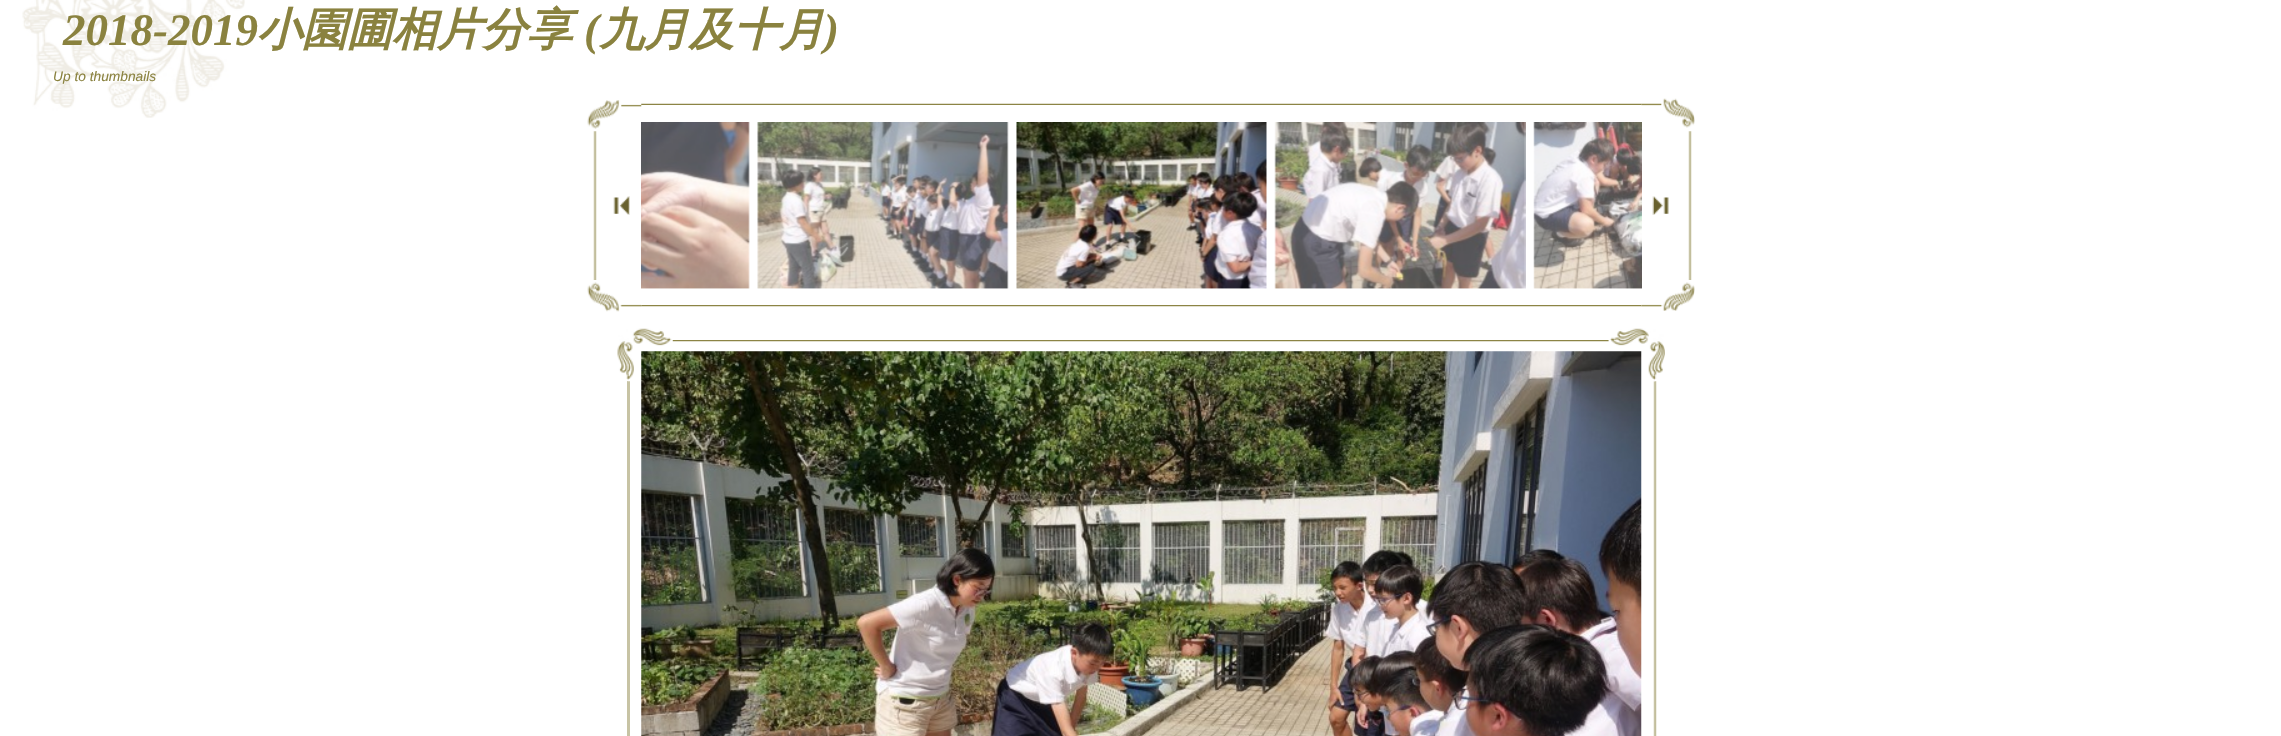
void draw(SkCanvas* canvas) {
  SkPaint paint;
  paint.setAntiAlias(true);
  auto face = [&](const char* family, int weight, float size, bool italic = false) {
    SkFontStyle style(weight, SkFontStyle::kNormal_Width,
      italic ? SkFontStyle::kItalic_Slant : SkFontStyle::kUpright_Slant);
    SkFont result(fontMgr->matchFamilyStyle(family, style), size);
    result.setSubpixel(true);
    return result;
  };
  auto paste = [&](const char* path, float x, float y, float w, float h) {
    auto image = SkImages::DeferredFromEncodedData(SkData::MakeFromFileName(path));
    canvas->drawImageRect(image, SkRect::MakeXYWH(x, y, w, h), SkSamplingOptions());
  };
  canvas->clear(0xffffffff);
  paste("img/1.png", 22, 0, 223, 118);
  paste("img/3.png", 641, 103, 1001, 2);
  paste("img/5.png", 593, 131, 4, 149);
  paste("img/2.png", 587, 100, 55, 32);
  paste("img/5.png", 1688, 131, 4, 149);
  paste("img/4.png", 1641, 98, 54, 34);
  paste("img/6.png", 613, 196, 17, 19);
  paste("img/7.png", 641, 122, 109, 167);
  paste("img/8.png", 757, 122, 252, 167);
  paste("img/9.png", 1016, 122, 251, 167);
  paste("img/10.png", 1274, 122, 252, 167);
  paste("img/11.png", 1533, 122, 109, 167);
  paste("img/12.png", 1652, 196, 17, 19);
  paste("img/14.png", 641, 305, 1001, 2);
  paste("img/13.png", 587, 280, 55, 32);
  paste("img/15.png", 1641, 280, 54, 31);
  paste("img/17.png", 672, 340, 937, 2);
  paint.setColor(0xffc7c3a4);
  canvas->drawRect(SkRect::MakeXYWH(627, 381, 3, 355), paint);
  paste("img/16.png", 617, 328, 56, 54);
  paste("img/20.png", 1653, 381, 4, 355);
  paste("img/18.png", 1608, 328, 57, 54);
  paste("img/19.png", 641, 351, 1001, 385);
  auto f0 = face("Liberation Serif", 700, 45, true);
  paint.setColor(0xff8a823f);
  canvas->drawString("2018-2019", 63, 45, f0, paint);
  auto f1 = face("WenQuanYi Zen Hei", 700, 45, true);
  canvas->drawString("小園圃相片分享", 257, 45, f1, paint);
  canvas->drawString("(", 584, 45, f0, paint);
  canvas->drawString("九月及十月", 599, 45, f1, paint);
  canvas->drawString(")", 824, 45, f0, paint);
  auto f2 = face("Liberation Sans", 400, 13.75f, true);
  canvas->drawString("Up to thumbnails", 53, 81, f2, paint);
}
